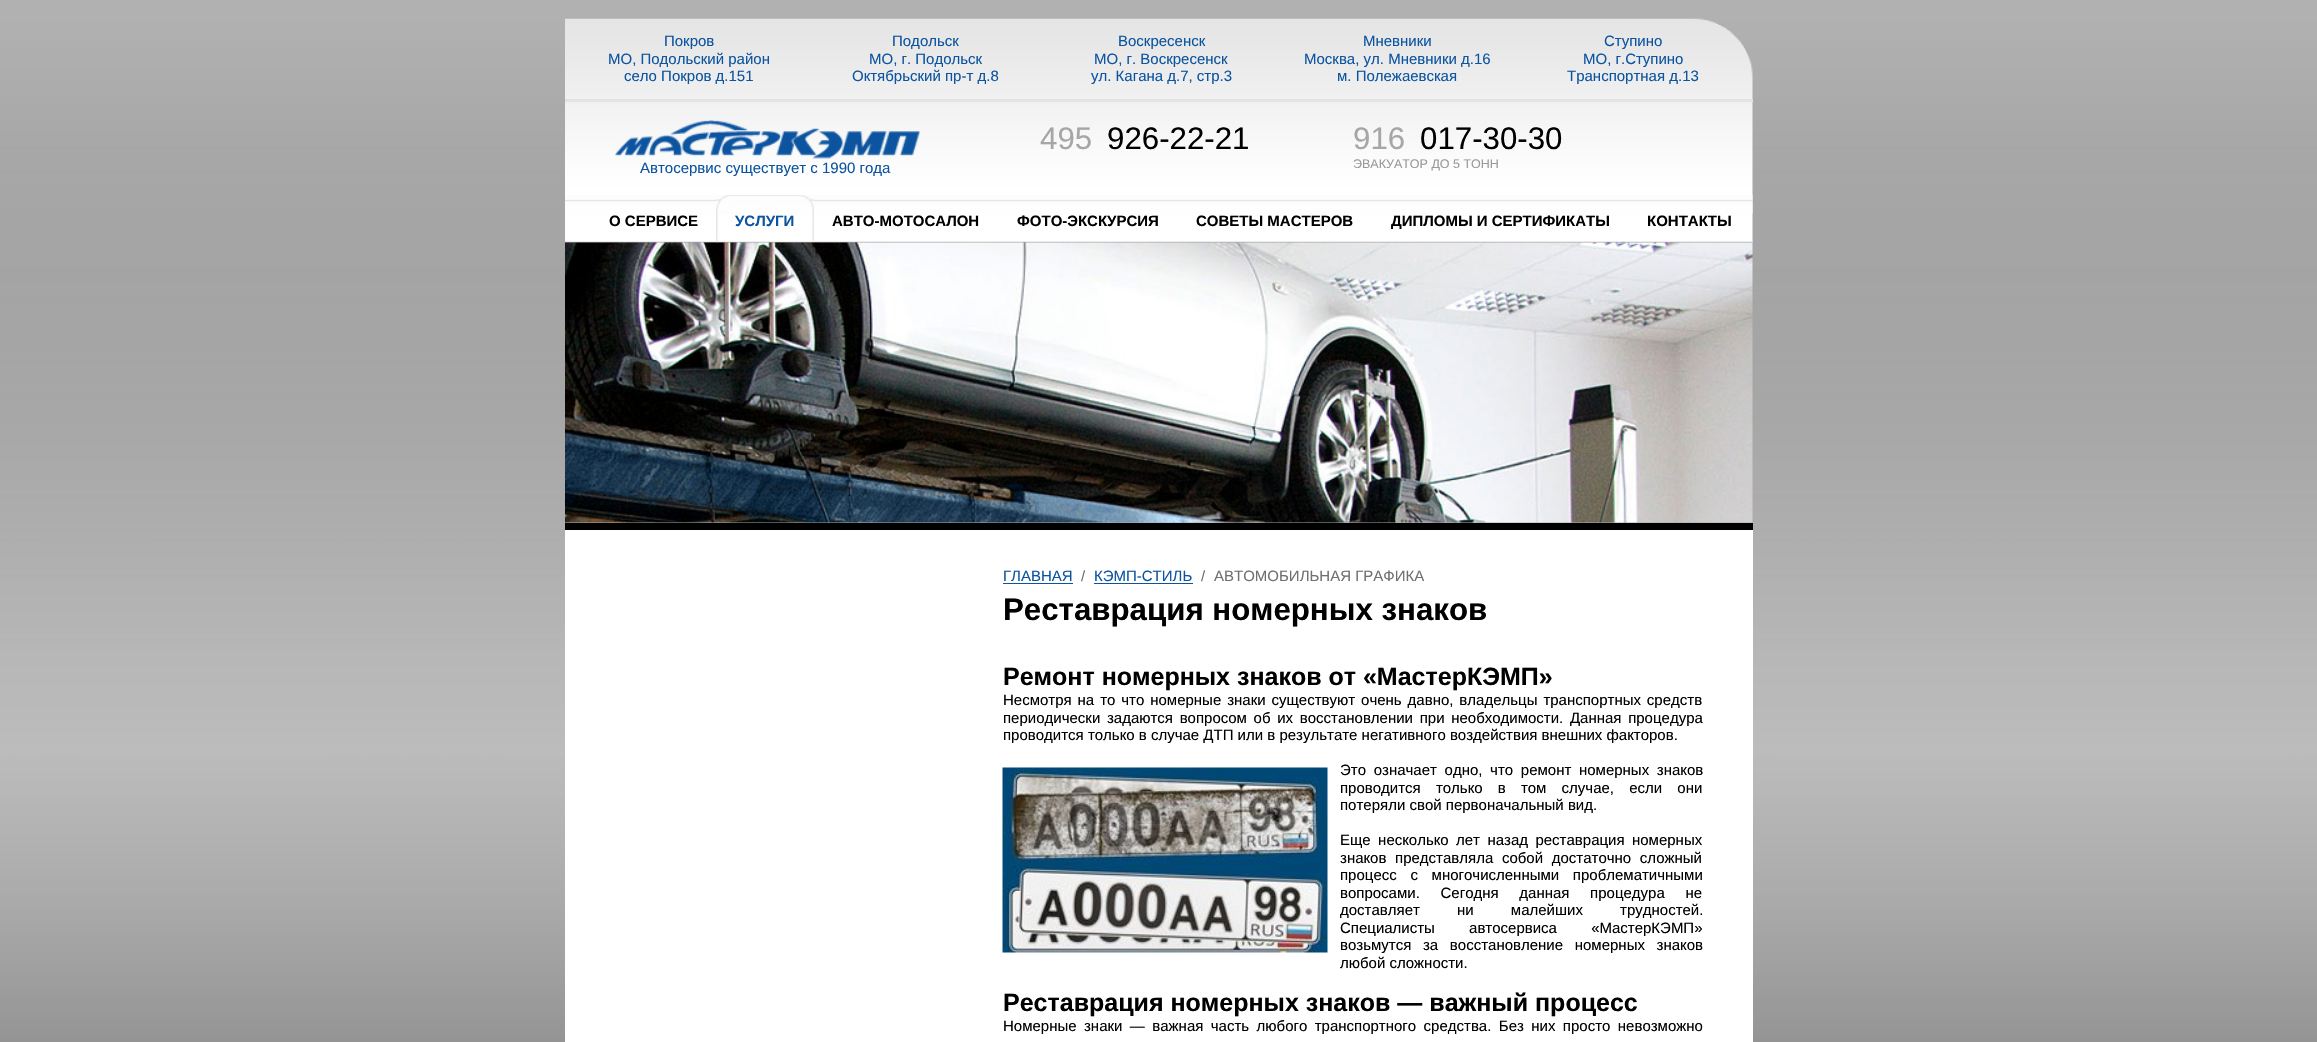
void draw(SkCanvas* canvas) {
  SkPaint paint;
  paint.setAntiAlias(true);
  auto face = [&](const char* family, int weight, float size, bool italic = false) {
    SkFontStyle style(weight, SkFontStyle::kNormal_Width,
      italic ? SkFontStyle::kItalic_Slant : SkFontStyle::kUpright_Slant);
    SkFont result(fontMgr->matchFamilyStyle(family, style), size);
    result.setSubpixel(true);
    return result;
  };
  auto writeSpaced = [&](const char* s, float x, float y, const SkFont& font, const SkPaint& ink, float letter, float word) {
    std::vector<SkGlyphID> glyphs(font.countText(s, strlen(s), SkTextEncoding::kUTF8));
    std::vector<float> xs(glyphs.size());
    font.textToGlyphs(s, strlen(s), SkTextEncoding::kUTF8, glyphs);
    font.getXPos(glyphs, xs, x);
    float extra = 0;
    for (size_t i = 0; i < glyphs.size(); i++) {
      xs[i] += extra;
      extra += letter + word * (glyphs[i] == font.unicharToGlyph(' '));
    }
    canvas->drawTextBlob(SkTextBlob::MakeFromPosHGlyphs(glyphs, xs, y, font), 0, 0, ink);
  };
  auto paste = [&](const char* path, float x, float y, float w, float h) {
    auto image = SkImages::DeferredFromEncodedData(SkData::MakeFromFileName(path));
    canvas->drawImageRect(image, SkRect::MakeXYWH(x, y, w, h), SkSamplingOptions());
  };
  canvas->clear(0xffffffff);
  paste("img/1.png", 0, 0, 2317, 1042);
  paste("img/2.png", 565, 18, 1188, 196);
  paint.setColor(0xffe3e3e3);
  canvas->drawRect(SkRect::MakeXYWH(565, 99, 1188, 3), paint);
  paste("img/3.png", 615, 120, 305, 39);
  paint.setColor(0xffe5e5e5);
  canvas->drawRect(SkRect::MakeXYWH(565, 241, 1188, 1), paint);
  paste("img/4.png", 565, 195, 1188, 47);
  paste("img/5.png", 716, 195, 98, 47);
  paste("img/6.png", 716, 195, 14, 46);
  paint.setColor(0xff000000);
  canvas->drawRect(SkRect::MakeXYWH(565, 523, 1188, 7), paint);
  paste("img/7.png", 565, 242, 1188, 281);
  {
    const struct { float x, y, w, h; SkColor color; } items[] = {
      {565, 530, 1188, 512, 0xffffffff},
      {1003, 583, 70, 1, 0xff0c54a0},
      {1094, 583, 99, 1, 0xff0c54a0},
    };
    for (auto [x, y, w, h, color] : items) {
      paint.setColor(color);
      canvas->drawRect(SkRect::MakeXYWH(x, y, w, h), paint);
    }
  }
  paste("img/8.png", 1002, 767, 326, 186);
  auto f0 = face("Liberation Sans", 400, 15);
  {
    const struct { const char* s; float x, y; } items[] = {
      {"Покров", 664, 46},
      {"МO, Подольский район", 608, 64},
      {"село Покров д.151", 624, 81},
      {"Подольск", 892, 46},
      {"МO, г. Подольск", 869, 64},
      {"Октябрьский пр-т д.8", 852, 81},
      {"Воскресенск", 1118, 46},
      {"МO, г. Воскресенск", 1094, 64},
      {"ул. Кагана д.7, стр.3", 1091, 81},
      {"Мневники", 1363, 46},
      {"Москва, ул. Мневники д.16", 1304, 64},
      {"м. Полежаевская", 1337, 81},
      {"Ступино", 1604, 46},
      {"МO, г.Ступино", 1583, 64},
      {"Транспортная д.13", 1567, 81},
      {"Автосервис существует с 1990 года", 640, 173},
    };
    for (auto [s, x, y] : items) {
      canvas->drawString(s, x, y, f0, paint);
    }
  }
  auto f1 = face("Liberation Sans", 400, 31.25f);
  paint.setColor(0xffa6a6a6);
  canvas->drawString("495", 1040, 149, f1, paint);
  paint.setColor(0xff000000);
  canvas->drawString("926-22-21", 1107, 149, f1, paint);
  paint.setColor(0xffa6a6a6);
  canvas->drawString("916", 1353, 149, f1, paint);
  paint.setColor(0xff000000);
  canvas->drawString("017-30-30", 1420, 149, f1, paint);
  auto f2 = face("Liberation Sans", 400, 12.5f);
  paint.setColor(0xff999999);
  canvas->drawString("ЭВАКУАТОР ДО 5 ТОНН", 1353, 168, f2, paint);
  auto f3 = face("Liberation Sans", 700, 15);
  paint.setColor(0xff000000);
  canvas->drawString("О CЕРВИСЕ", 609, 226, f3, paint);
  paint.setColor(0xff0c54a0);
  canvas->drawString("УСЛУГИ", 735, 226, f3, paint);
  paint.setColor(0xff000000);
  {
    const struct { const char* s; float x, y; } items[] = {
      {"АВТО-МОТОСАЛОН", 832, 226},
      {"ФОТО-ЭКСКУРСИЯ", 1017, 226},
      {"СОВЕТЫ МАСТЕРОВ", 1196, 226},
      {"ДИПЛОМЫ И СЕРТИФИКАТЫ", 1391, 226},
      {"КОНТАКТЫ", 1647, 226},
    };
    for (auto [s, x, y] : items) {
      canvas->drawString(s, x, y, f3, paint);
    }
  }
  paint.setColor(0xff0c54a0);
  canvas->drawString("ГЛАВНАЯ", 1003, 581, f0, paint);
  paint.setColor(0xff707070);
  canvas->drawString("/", 1081, 581, f0, paint);
  paint.setColor(0xff0c54a0);
  canvas->drawString("КЭМП-СТИЛЬ", 1094, 581, f0, paint);
  paint.setColor(0xff707070);
  canvas->drawString("/", 1201, 581, f0, paint);
  canvas->drawString("АВТОМОБИЛЬНАЯ ГРАФИКА", 1214, 581, f0, paint);
  auto f4 = face("Liberation Sans", 700, 31.25f);
  paint.setColor(0xff000000);
  canvas->drawString("Реставрация номерных знаков", 1003, 620, f4, paint);
  auto f5 = face("Liberation Sans", 700, 25);
  canvas->drawString("Ремонт номерных знаков от «МастерКЭМП»", 1003, 685, f5, paint);
  writeSpaced("Несмотря на то что номерные знаки существуют очень давно, владельцы транспортных средств", 1003, 705, f0, paint, 0, 1.75f);
  writeSpaced("периодически задаются вопросом об их восстановлении при необходимости. Данная процедура", 1003, 723, f0, paint, 0, 2.5f);
  canvas->drawString("проводится только в случае ДТП или в результате негативного воздействия внешних факторов.", 1003, 740, f0, paint);
  writeSpaced("Это означает одно, что ремонт номерных знаков", 1340, 775, f0, paint, 0, 3.5f);
  writeSpaced("проводится только в том случае, если они", 1340, 793, f0, paint, 0, 11);
  canvas->drawString("потеряли свой первоначальный вид.", 1340, 810, f0, paint);
  writeSpaced("Еще несколько лет назад реставрация номерных", 1340, 845, f0, paint, 0, 3.25f);
  writeSpaced("знаков представляла собой достаточно сложный", 1340, 863, f0, paint, 0, 4.5f);
  writeSpaced("процесс с многочисленными проблематичными", 1340, 880, f0, paint, 0, 9.5f);
  writeSpaced("вопросами. Сегодня данная процедура не", 1340, 898, f0, paint, 0, 16.5f);
  writeSpaced("доставляет ни малейших трудностей.", 1340, 915, f0, paint, 0, 33);
  writeSpaced("Специалисты автосервиса «МастерКЭМП»", 1340, 933, f0, paint, 0, 30);
  writeSpaced("возьмутся за восстановление номерных знаков", 1340, 950, f0, paint, 0, 7.5f);
  canvas->drawString("любой сложности.", 1340, 968, f0, paint);
  canvas->drawString("Реставрация номерных знаков — важный процесс", 1003, 1011, f5, paint);
  writeSpaced("Номерные знаки — важная часть любого транспортного средства. Без них просто невозможно", 1003, 1031, f0, paint, 0, 3.25f);
}
